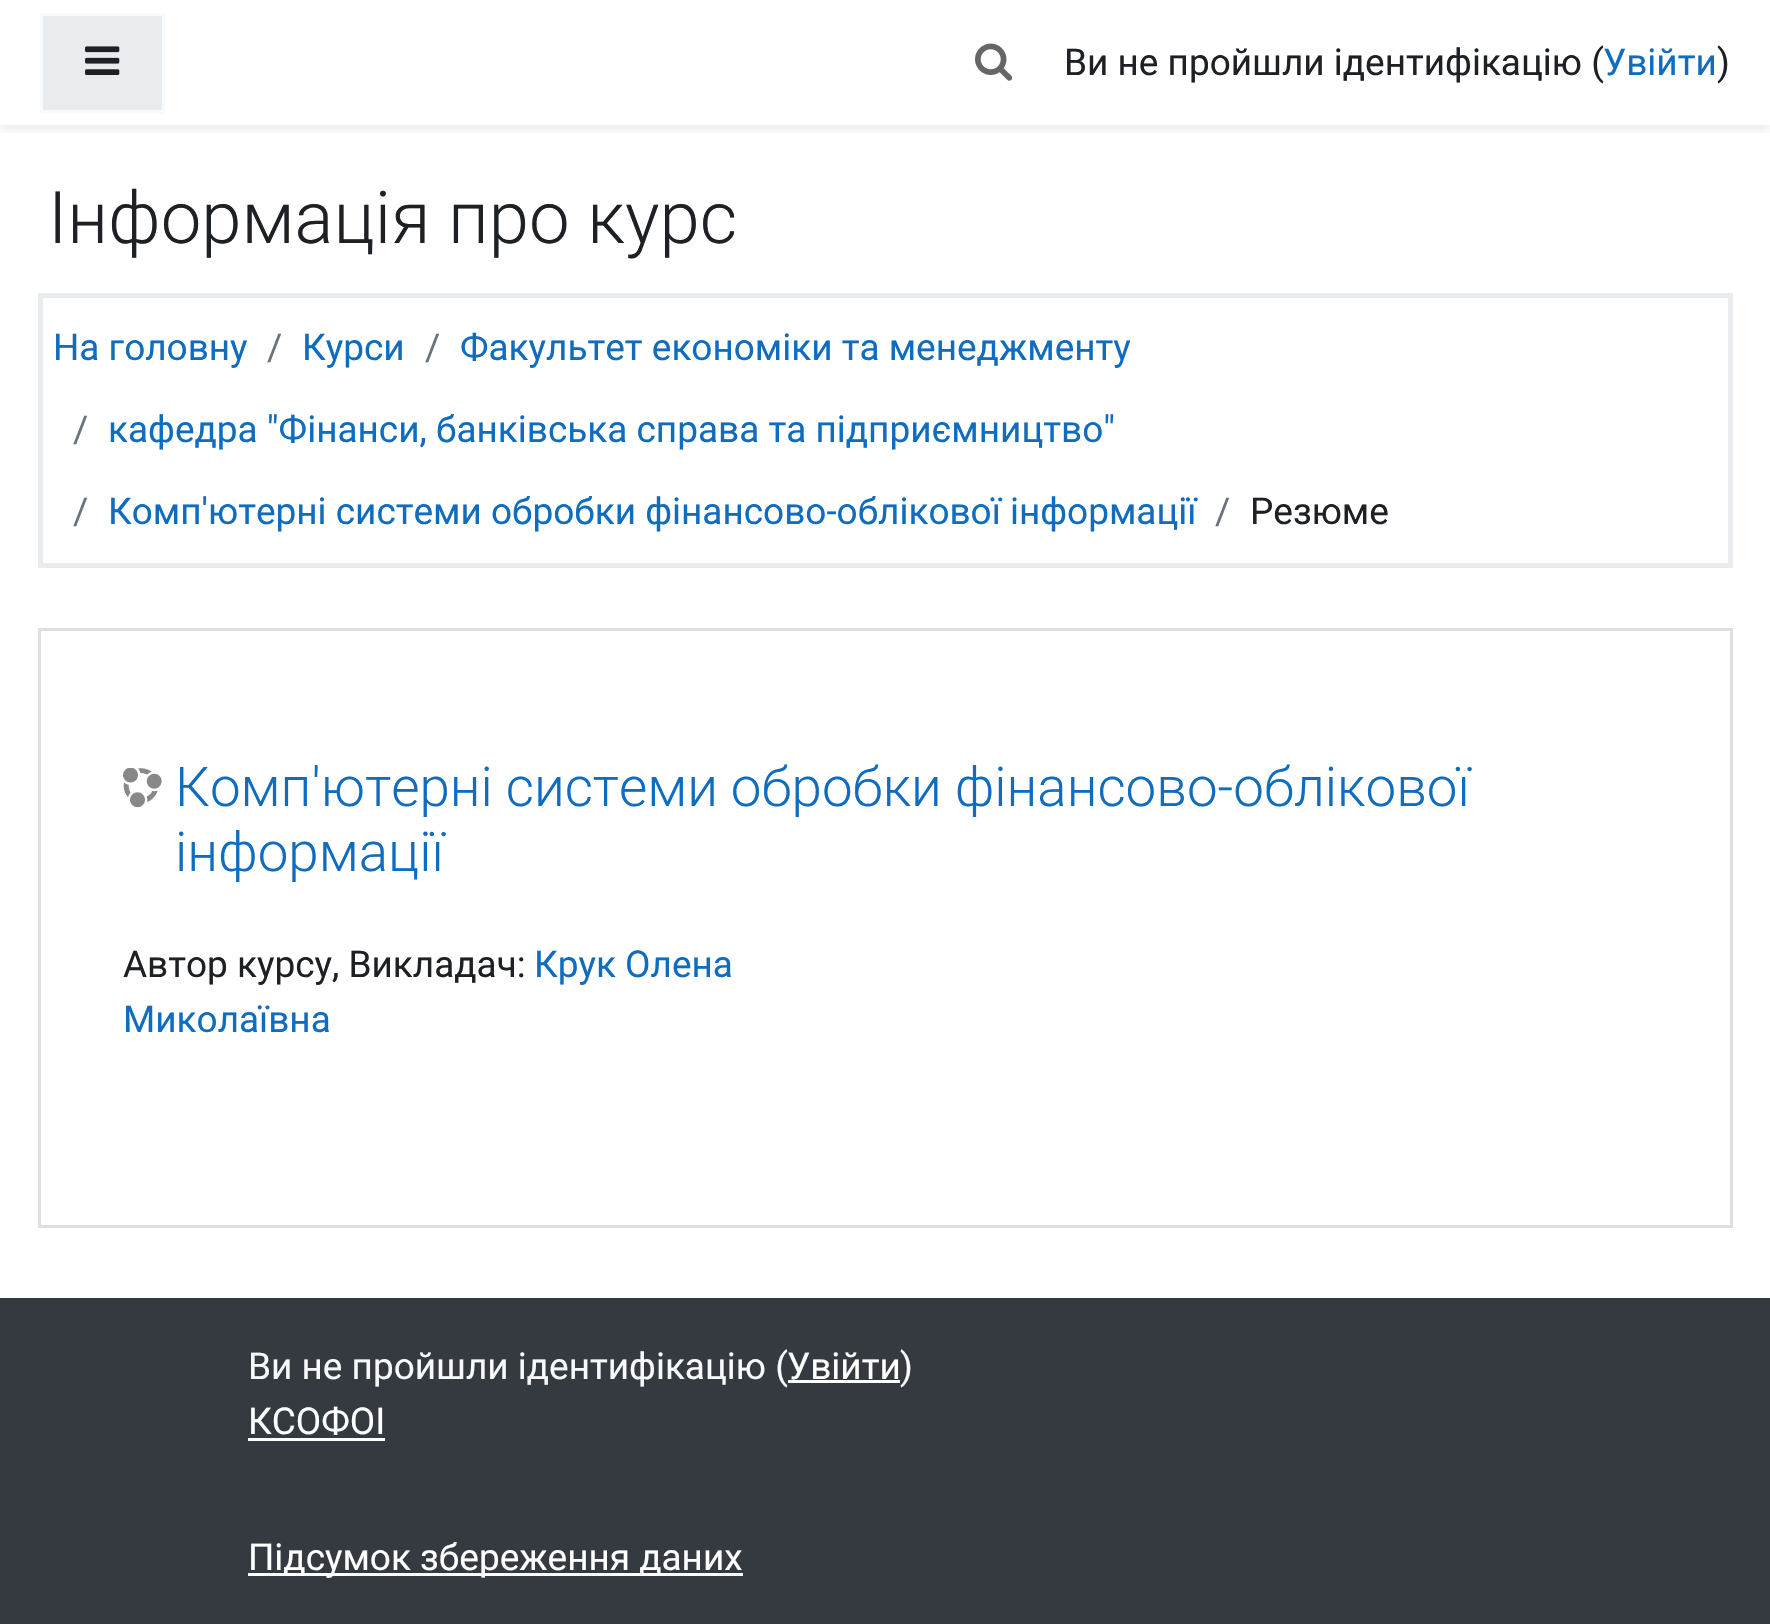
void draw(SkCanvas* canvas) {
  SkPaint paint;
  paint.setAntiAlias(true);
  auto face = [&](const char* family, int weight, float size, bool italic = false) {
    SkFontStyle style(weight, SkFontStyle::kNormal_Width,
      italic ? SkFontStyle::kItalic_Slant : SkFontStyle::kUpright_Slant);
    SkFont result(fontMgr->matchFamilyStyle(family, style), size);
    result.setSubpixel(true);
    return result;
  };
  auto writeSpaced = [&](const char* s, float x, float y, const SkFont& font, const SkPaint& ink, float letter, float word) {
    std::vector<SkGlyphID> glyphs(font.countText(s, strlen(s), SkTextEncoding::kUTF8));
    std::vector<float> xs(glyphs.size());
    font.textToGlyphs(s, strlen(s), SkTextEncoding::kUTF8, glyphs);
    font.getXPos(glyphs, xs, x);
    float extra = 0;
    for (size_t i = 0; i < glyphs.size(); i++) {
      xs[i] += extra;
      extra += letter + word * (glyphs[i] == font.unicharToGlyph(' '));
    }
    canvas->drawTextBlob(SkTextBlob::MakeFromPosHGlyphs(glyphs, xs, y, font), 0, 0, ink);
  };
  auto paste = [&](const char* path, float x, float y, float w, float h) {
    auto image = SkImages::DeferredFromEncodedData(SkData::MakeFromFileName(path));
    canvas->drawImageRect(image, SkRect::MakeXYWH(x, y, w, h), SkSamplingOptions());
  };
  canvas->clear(0xffffffff);
  canvas->save();
  canvas->clipRect(SkRect::MakeXYWH(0, 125, 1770, 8));
  paint.setColor(0x14000000);
  paint.setMaskFilter(SkMaskFilter::MakeBlur(kNormal_SkBlurStyle, 5));
  canvas->drawRect(SkRect::MakeXYWH(0, 5, 1770, 125), paint);
  paint.setMaskFilter(nullptr);
  canvas->restore();
  paint.setColor(0xffe9ecef);
  canvas->drawRect(SkRect::MakeXYWH(41.5f, 14.5f, 122, 97), paint);
  paint.setStroke(true);
  paint.setStrokeWidth(3);
  paint.setColor(0xfff8f9fa);
  canvas->drawRect(SkRect::MakeXYWH(41.5f, 14.5f, 122, 97), paint);
  paste("img/1.png", 85, 46, 35, 29);
  paste("img/2.png", 975, 43, 38, 38);
  paint.setStrokeWidth(5);
  paint.setColor(0xffe9ecef);
  canvas->drawRect(SkRect::MakeXYWH(40.5f, 295.5f, 1690, 270), paint);
  paint.setStrokeWidth(3);
  paint.setColor(0xffdfdfdf);
  canvas->drawRect(SkRect::MakeXYWH(39.5f, 629.5f, 1692, 597), paint);
  paste("img/3.png", 123, 768, 39, 40);
  paint.setStroke(false);
  {
    const struct { float x, y, w, h; SkColor color; } items[] = {
      {0, 1298, 1770, 326, 0xff343a40},
      {788, 1380, 112, 3, 0xffffffff},
      {248, 1438, 137, 3, 0xffffffff},
      {248, 1573, 495, 3, 0xffffffff},
    };
    for (auto [x, y, w, h, color] : items) {
      paint.setColor(color);
      canvas->drawRect(SkRect::MakeXYWH(x, y, w, h), paint);
    }
  }
  auto f0 = face("Roboto", 400, 36.95f);
  paint.setColor(0xff1d2125);
  canvas->drawString("Ви не пройшли ідентифікацію (", 1064, 75, f0, paint);
  paint.setColor(0xff0f6cbf);
  canvas->drawString("Увійти", 1603, 75, f0, paint);
  paint.setColor(0xff1d2125);
  canvas->drawString(")", 1717, 75, f0, paint);
  auto f1 = face("Roboto", 300, 72.5f);
  canvas->drawString("Інформація про курс", 48, 243, f1, paint);
  paint.setColor(0xff0f6cbf);
  canvas->drawString("На головну", 53, 360, f0, paint);
  paint.setColor(0xff6a737b);
  canvas->drawString("/", 267, 360, f0, paint);
  paint.setColor(0xff0f6cbf);
  canvas->drawString("Курси", 302, 360, f0, paint);
  paint.setColor(0xff6a737b);
  canvas->drawString("/", 425, 360, f0, paint);
  paint.setColor(0xff0f6cbf);
  canvas->drawString("Факультет економіки та менеджменту", 460, 360, f0, paint);
  paint.setColor(0xff6a737b);
  canvas->drawString("/", 73, 442, f0, paint);
  paint.setColor(0xff0f6cbf);
  canvas->drawString("кафедра \"Фінанси, банківська справа та підприємництво\"", 108, 442, f0, paint);
  paint.setColor(0xff6a737b);
  canvas->drawString("/", 73, 524, f0, paint);
  paint.setColor(0xff0f6cbf);
  canvas->drawString("Комп'ютерні системи обробки фінансово-облікової інформації", 108, 524, f0, paint);
  paint.setColor(0xff6a737b);
  canvas->drawString("/", 1215, 524, f0, paint);
  paint.setColor(0xff1d2125);
  canvas->drawString("Резюме", 1250, 524, f0, paint);
  auto f2 = face("Roboto", 300, 54.7f);
  paint.setColor(0xff0f6cbf);
  writeSpaced("Комп'ютерні системи обробки фінансово-облікової", 175, 806, f2, paint, 0, -0.5f);
  canvas->drawString("інформації", 175, 871, f2, paint);
  paint.setColor(0xff1d2125);
  canvas->drawString("Автор курсу, Викладач:", 123, 977, f0, paint);
  paint.setColor(0xff0f6cbf);
  canvas->drawString("Крук Олена", 534, 977, f0, paint);
  canvas->drawString("Миколаївна", 123, 1032, f0, paint);
  paint.setColor(0xfff8f9fa);
  canvas->drawString("Ви не пройшли ідентифікацію (", 248, 1379, f0, paint);
  paint.setColor(0xffffffff);
  canvas->drawString("Увійти", 787, 1379, f0, paint);
  paint.setColor(0xfff8f9fa);
  canvas->drawString(")", 900, 1379, f0, paint);
  paint.setColor(0xffffffff);
  canvas->drawString("КСОФОІ", 248, 1434, f0, paint);
  canvas->drawString("Підсумок збереження даних", 248, 1570, f0, paint);
}
